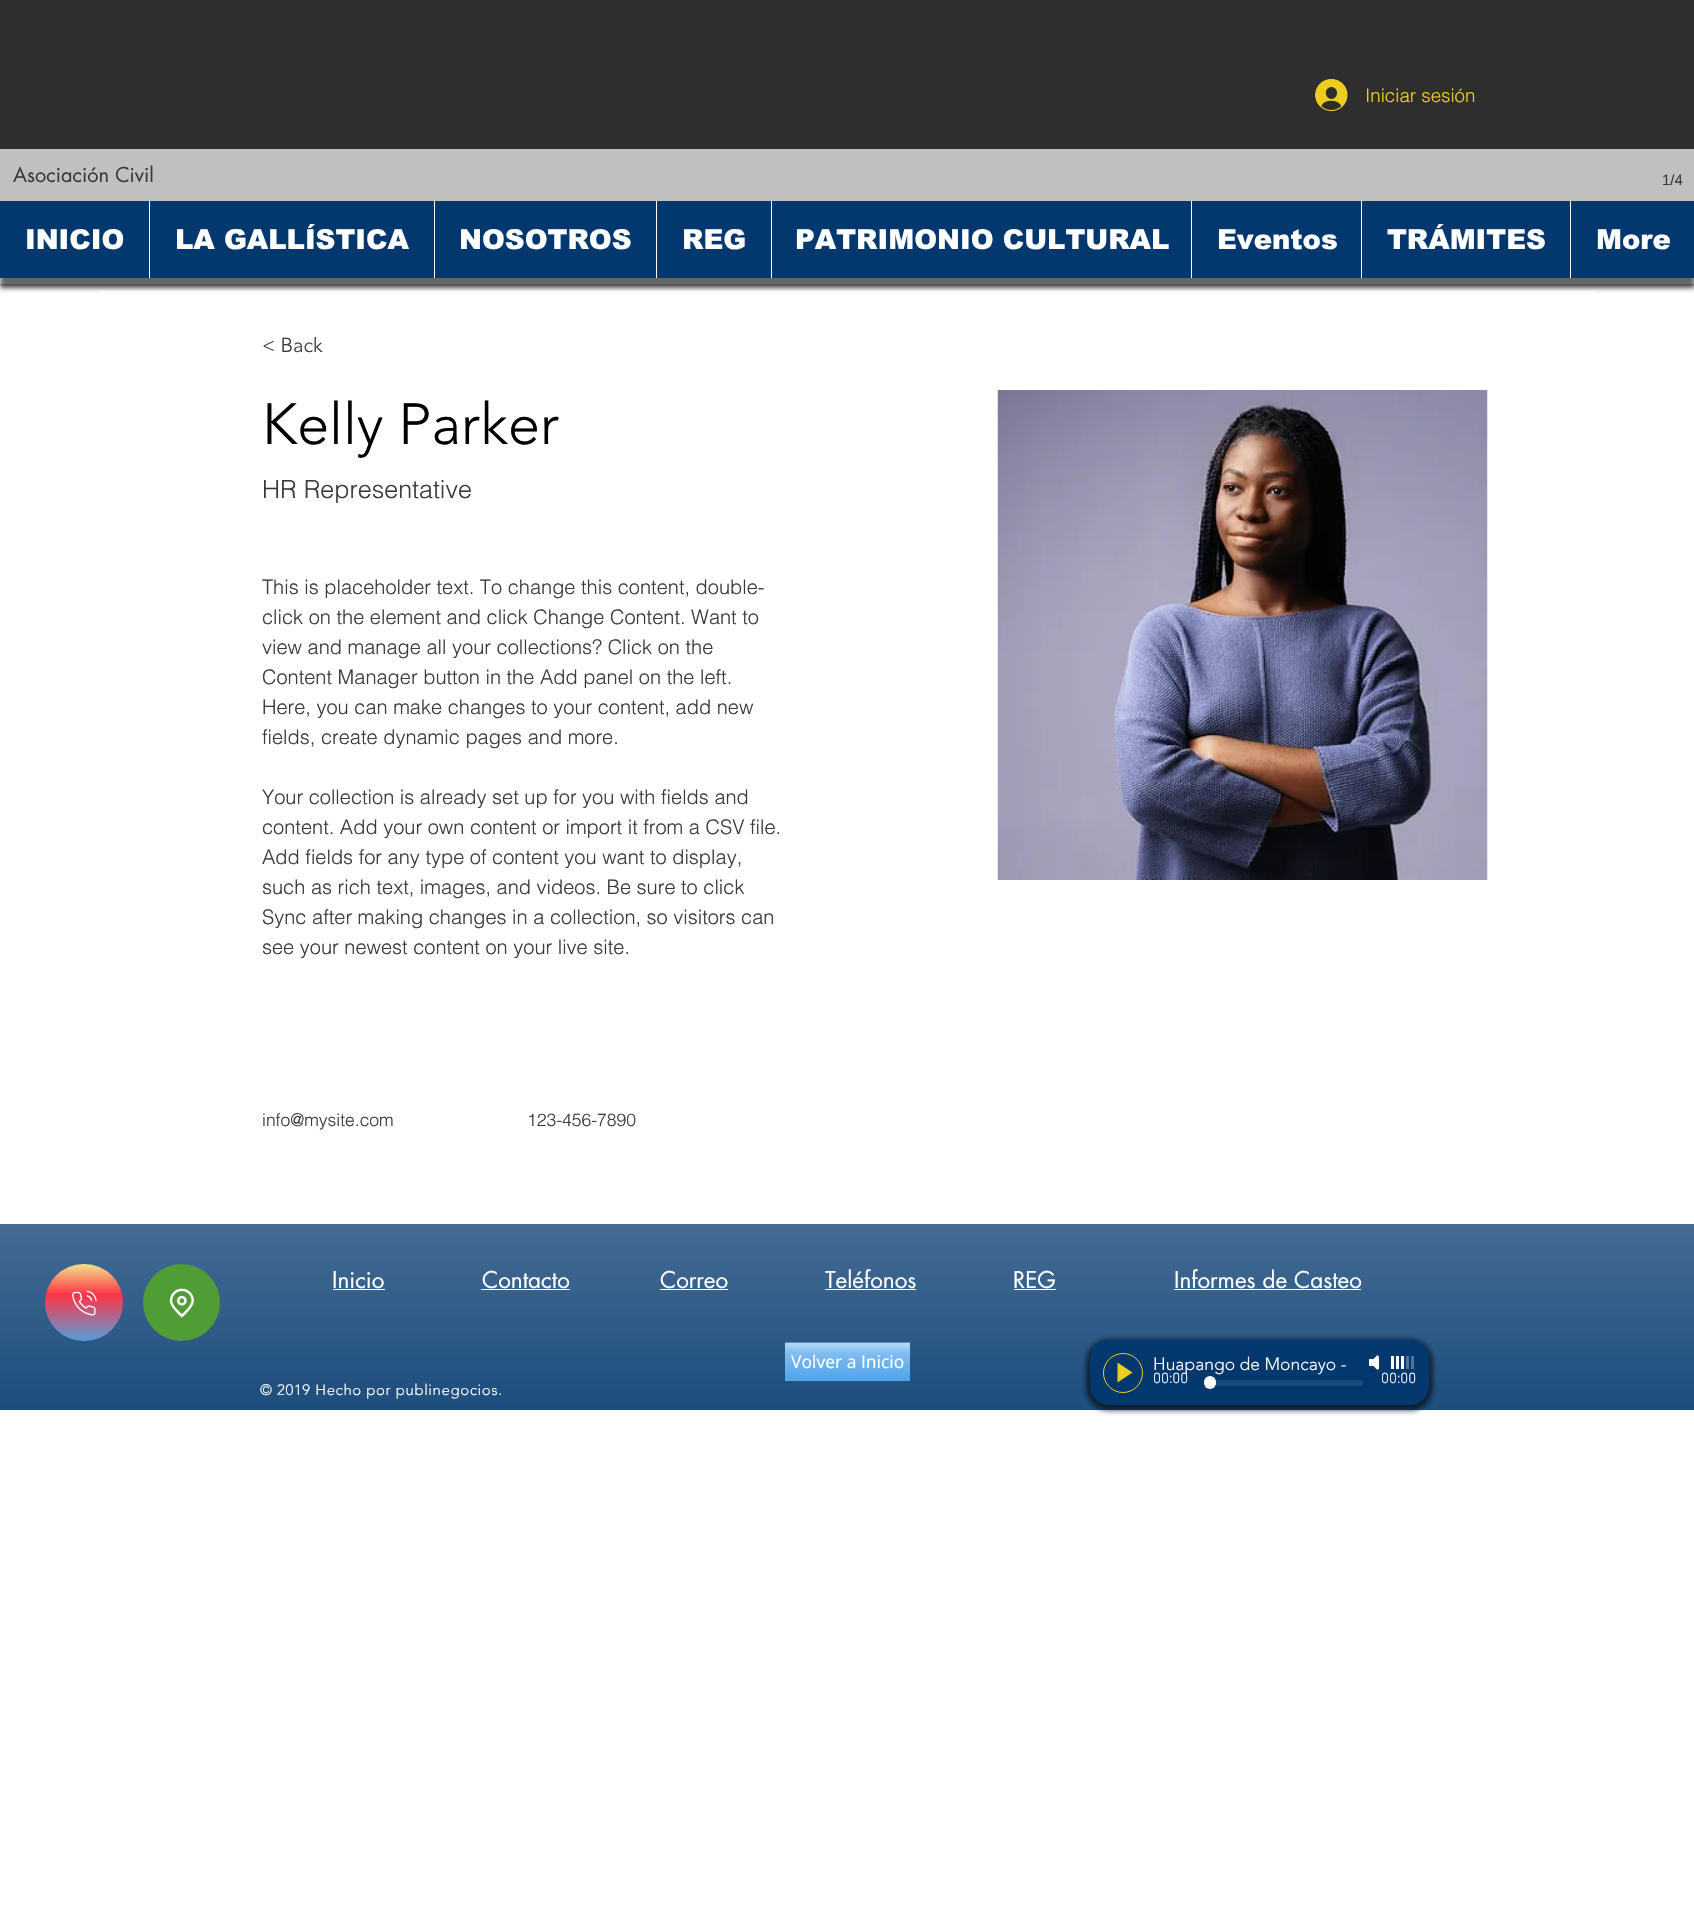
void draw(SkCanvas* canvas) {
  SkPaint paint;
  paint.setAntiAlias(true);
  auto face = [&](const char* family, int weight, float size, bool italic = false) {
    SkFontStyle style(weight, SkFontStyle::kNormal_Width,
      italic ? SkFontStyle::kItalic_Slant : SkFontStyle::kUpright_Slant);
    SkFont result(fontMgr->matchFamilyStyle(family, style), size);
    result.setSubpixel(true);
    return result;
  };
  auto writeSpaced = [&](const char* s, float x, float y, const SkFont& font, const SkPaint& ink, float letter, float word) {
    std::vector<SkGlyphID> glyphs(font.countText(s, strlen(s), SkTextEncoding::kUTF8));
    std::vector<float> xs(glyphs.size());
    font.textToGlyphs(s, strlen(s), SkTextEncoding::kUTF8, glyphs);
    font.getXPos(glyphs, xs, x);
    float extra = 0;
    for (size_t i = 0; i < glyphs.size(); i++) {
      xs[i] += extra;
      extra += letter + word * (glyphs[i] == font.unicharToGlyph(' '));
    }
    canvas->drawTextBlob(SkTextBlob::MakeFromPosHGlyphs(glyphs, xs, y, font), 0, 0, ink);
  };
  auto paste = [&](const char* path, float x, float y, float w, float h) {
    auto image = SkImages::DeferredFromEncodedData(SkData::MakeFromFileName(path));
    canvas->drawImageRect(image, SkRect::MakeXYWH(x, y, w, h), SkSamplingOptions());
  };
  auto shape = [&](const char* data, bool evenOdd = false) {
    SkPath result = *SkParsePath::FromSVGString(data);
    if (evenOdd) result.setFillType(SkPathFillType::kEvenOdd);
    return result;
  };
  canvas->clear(0xffffffff);
  paint.setColor(0xb3000000);
  paint.setMaskFilter(SkMaskFilter::MakeBlur(kNormal_SkBlurStyle, 3));
  canvas->drawRect(SkRect::MakeXYWH(0, 0, 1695, 284), paint);
  paint.setMaskFilter(nullptr);
  paint.setColor(0xffffffff);
  canvas->drawRect(SkRect::MakeXYWH(0, 278, 1694, 6), paint);
  paint.setColor(0xff2f2e2e);
  canvas->drawRect(SkRect::MakeXYWH(0, 0, 1694, 149), paint);
  paste("img/1.png", 1315, 79, 33, 32);
  paint.setColor(0xffc1c0c0);
  canvas->drawRect(SkRect::MakeXYWH(0, 149, 1694, 52), paint);
  paint.setColor(0x99000000);
  paint.setMaskFilter(SkMaskFilter::MakeBlur(kNormal_SkBlurStyle, 2.5f));
  canvas->drawRect(SkRect::MakeXYWH(0, 211, 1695, 77), paint);
  paint.setMaskFilter(nullptr);
  {
    const struct { float x, y, w, h; SkColor color; } items[] = {
      {0, 201, 1694, 77, 0xff02386e},
      {149, 201, 1, 77, 0xffffffff},
      {434, 201, 1, 77, 0xffffffff},
      {656, 201, 1, 77, 0xffffffff},
      {771, 201, 1, 77, 0xffffffff},
      {1191, 201, 1, 77, 0xffffffff},
      {1361, 201, 1, 77, 0xffffffff},
      {1570, 201, 1, 77, 0xffffffff},
      {100, 291, 1495, 2, 0xffffffff},
    };
    for (auto [x, y, w, h, color] : items) {
      paint.setColor(color);
      canvas->drawRect(SkRect::MakeXYWH(x, y, w, h), paint);
    }
  }
  paste("img/2.png", 997, 390, 491, 490);
  paint.setColor(0xff02386e);
  canvas->drawRect(SkRect::MakeXYWH(0, 1224, 1694, 186), paint);
  paste("img/3.png", 0, 1224, 1694, 186);
  {
    const SkColor colors[] = {0xfff3e389, 0xffff3447, 0xff569eda};
    const float stops[] = {0, 0.4f, 1};
    const SkPoint ends[] = {{84, 1264}, {84, 1341}};
    paint.setShader(SkGradientShader::MakeLinear(ends, colors, stops, 3, SkTileMode::kClamp));
    paint.setAlpha(255);
  }
  canvas->drawRoundRect(SkRect::MakeXYWH(45, 1264, 78, 77), 38.5f, 38.5f, paint);
  paste("img/4.png", 72, 1290, 25, 26);
  paint.setShader(nullptr);
  paint.setColor(0xff509c35);
  canvas->drawCircle(181.5f, 1302.5f, 38.5f, paint);
  paste("img/5.png", 169, 1288, 25, 30);
  {
    const struct { float x, y, w, h; SkColor color; } items[] = {
      {333, 1289, 52, 1, 0xffffffff},
      {481, 1289, 89, 1, 0xffffffff},
      {660, 1289, 68, 1, 0xffffffff},
      {825, 1289, 91, 1, 0xffffffff},
      {1014, 1289, 42, 1, 0xffffffff},
      {1174, 1289, 187, 1, 0xffffffff},
      {785, 1343, 125, 38, 0xff3d9be9},
    };
    for (auto [x, y, w, h, color] : items) {
      paint.setColor(color);
      canvas->drawRect(SkRect::MakeXYWH(x, y, w, h), paint);
    }
  }
  paste("img/6.png", 785, 1342, 125, 40);
  paint.setColor(0x99000000);
  paint.setMaskFilter(SkMaskFilter::MakeBlur(kNormal_SkBlurStyle, 2.5f));
  canvas->drawRoundRect(SkRect::MakeXYWH(1086, 1339, 347, 72), 23, 23, paint);
  paint.setMaskFilter(nullptr);
  paint.setColor(0xff02386e);
  canvas->drawRoundRect(SkRect::MakeXYWH(1090, 1340, 339, 65), 19, 19, paint);
  paint.setStroke(true);
  paint.setStrokeWidth(1);
  paint.setColor(0xffedcd1f);
  canvas->drawCircle(1123, 1373, 19.5f, paint);
  paint.setStroke(false);
  canvas->drawPath(shape("M1117.5 1382.5V1362.5L1132.5 1372.5Z"), paint);
  paint.setColor(0xffffffff);
  canvas->drawPath(shape("M1377.5 1370L1370 1362.5L1377.5 1355L1379 1356.5V1368.5Z"), paint);
  {
    const struct { float x, y, w, h; SkColor color; } items[] = {
      {1369, 1359, 5, 7, 0xffffffff},
      {1391, 1356, 3, 13, 0xffffffff},
      {1396, 1356, 3, 13, 0xffffffff},
      {1401, 1356, 3, 13, 0xffffffff},
      {1406, 1356, 3, 13, 0xff4e749a},
      {1411, 1356, 3, 13, 0xff4e749a},
    };
    for (auto [x, y, w, h, color] : items) {
      paint.setColor(color);
      canvas->drawRect(SkRect::MakeXYWH(x, y, w, h), paint);
    }
  }
  paint.setColor(0xff194a7b);
  canvas->drawPath(shape("M1207 1380C1203 1380 1203 1386 1207 1386H1360C1364 1386 1364 1380 1360 1380Z"), paint);
  paint.setColor(0xffffffff);
  canvas->drawRoundRect(SkRect::MakeXYWH(1204, 1376, 12, 13), 6, 6, paint);
  auto f0 = face("helvetica", 300, 18.75f);
  paint.setColor(0xffedcd1f);
  canvas->drawString("Iniciar sesión", 1365, 102, f0, paint);
  auto f1 = face("futura", 400, 20);
  paint.setColor(0xff3b3a3a);
  canvas->drawString("Asociación Civil", 13, 182, f1, paint);
  auto f2 = face("Liberation Sans", 400, 15);
  canvas->drawString("1/4", 1662, 185, f2, paint);
  auto f3 = face("arial", 900, 27.5f);
  paint.setColor(0xffffffff);
  {
    const struct { const char* s; float x, y; } items[] = {
      {"INICIO", 25, 249},
      {"LA GALLÍSTICA", 175, 249},
      {"NOSOTROS", 459, 249},
      {"REG", 682, 249},
      {"PATRIMONIO CULTURAL", 795, 249},
      {"Eventos", 1217, 249},
      {"TRÁMITES", 1387, 249},
      {"More", 1596, 249},
    };
    for (auto [s, x, y] : items) {
      canvas->drawString(s, x, y, f3, paint);
    }
  }
  auto f4 = face("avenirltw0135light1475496", 300, 20);
  paint.setColor(0xff3b3a3a);
  canvas->drawString("< Back", 262, 352, f4, paint);
  auto f5 = face("avenirltw0135light1475496", 300, 57.5f);
  paint.setColor(0xff000000);
  canvas->drawString("Kelly Parker", 262, 444, f5, paint);
  auto f6 = face("helvetica", 300, 25);
  paint.setColor(0xff3b3a3a);
  canvas->drawString("HR Representative", 262, 498, f6, paint);
  auto f7 = face("helvetica", 300, 20);
  {
    const struct { const char* s; float x, y; } items[] = {
      {"This is placeholder text. To change this content, double-", 262, 594},
      {"click on the element and click Change Content. Want to", 262, 624},
      {"view and manage all your collections? Click on the", 262, 654},
      {"Content Manager button in the Add panel on the left.", 262, 684},
      {"Here, you can make changes to your content, add new", 262, 714},
      {"fields, create dynamic pages and more.", 262, 744},
      {"Your collection is already set up for you with fields and", 262, 804},
      {"content. Add your own content or import it from a CSV file.", 262, 834},
      {"Add fields for any type of content you want to display,", 262, 864},
      {"such as rich text, images, and videos. Be sure to click", 262, 894},
      {"Sync after making changes in a collection, so visitors can", 262, 924},
      {"see your newest content on your live site.", 262, 954},
    };
    for (auto [s, x, y] : items) {
      canvas->drawString(s, x, y, f7, paint);
    }
  }
  auto f8 = face("helvetica", 300, 17.5f);
  canvas->drawString("info@mysite.com", 262, 1126, f8, paint);
  canvas->drawString("123-456-7890", 527, 1126, f8, paint);
  auto f9 = face("futura", 400, 22.5f);
  paint.setColor(0xffffffff);
  {
    const struct { const char* s; float x, y; } items[] = {
      {"Inicio", 332, 1288},
      {"Contacto", 482, 1288},
      {"Correo", 660, 1288},
      {"Teléfonos", 825, 1288},
      {"REG", 1013, 1288},
      {"Informes de Casteo", 1174, 1288},
    };
    for (auto [s, x, y] : items) {
      canvas->drawString(s, x, y, f9, paint);
    }
  }
  auto f10 = face("Open Sans", 400, 17.5f);
  canvas->drawString("Volver a Inicio", 791, 1368, f10, paint);
  auto f11 = face("avenirltw0135light1475496", 300, 17.5f);
  canvas->drawString("Huapango de Moncayo -", 1153, 1370, f11, paint);
  auto f12 = face("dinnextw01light", 300, 15);
  canvas->drawString("00:00", 1153, 1383, f12, paint);
  canvas->drawString("00:00", 1381, 1383, f12, paint);
  auto f13 = face("avenirltw0135light1475496", 300, 15);
  writeSpaced("© 2019 Hecho por publinegocios.", 260, 1395, f13, paint, 0.6f, 0);
}
